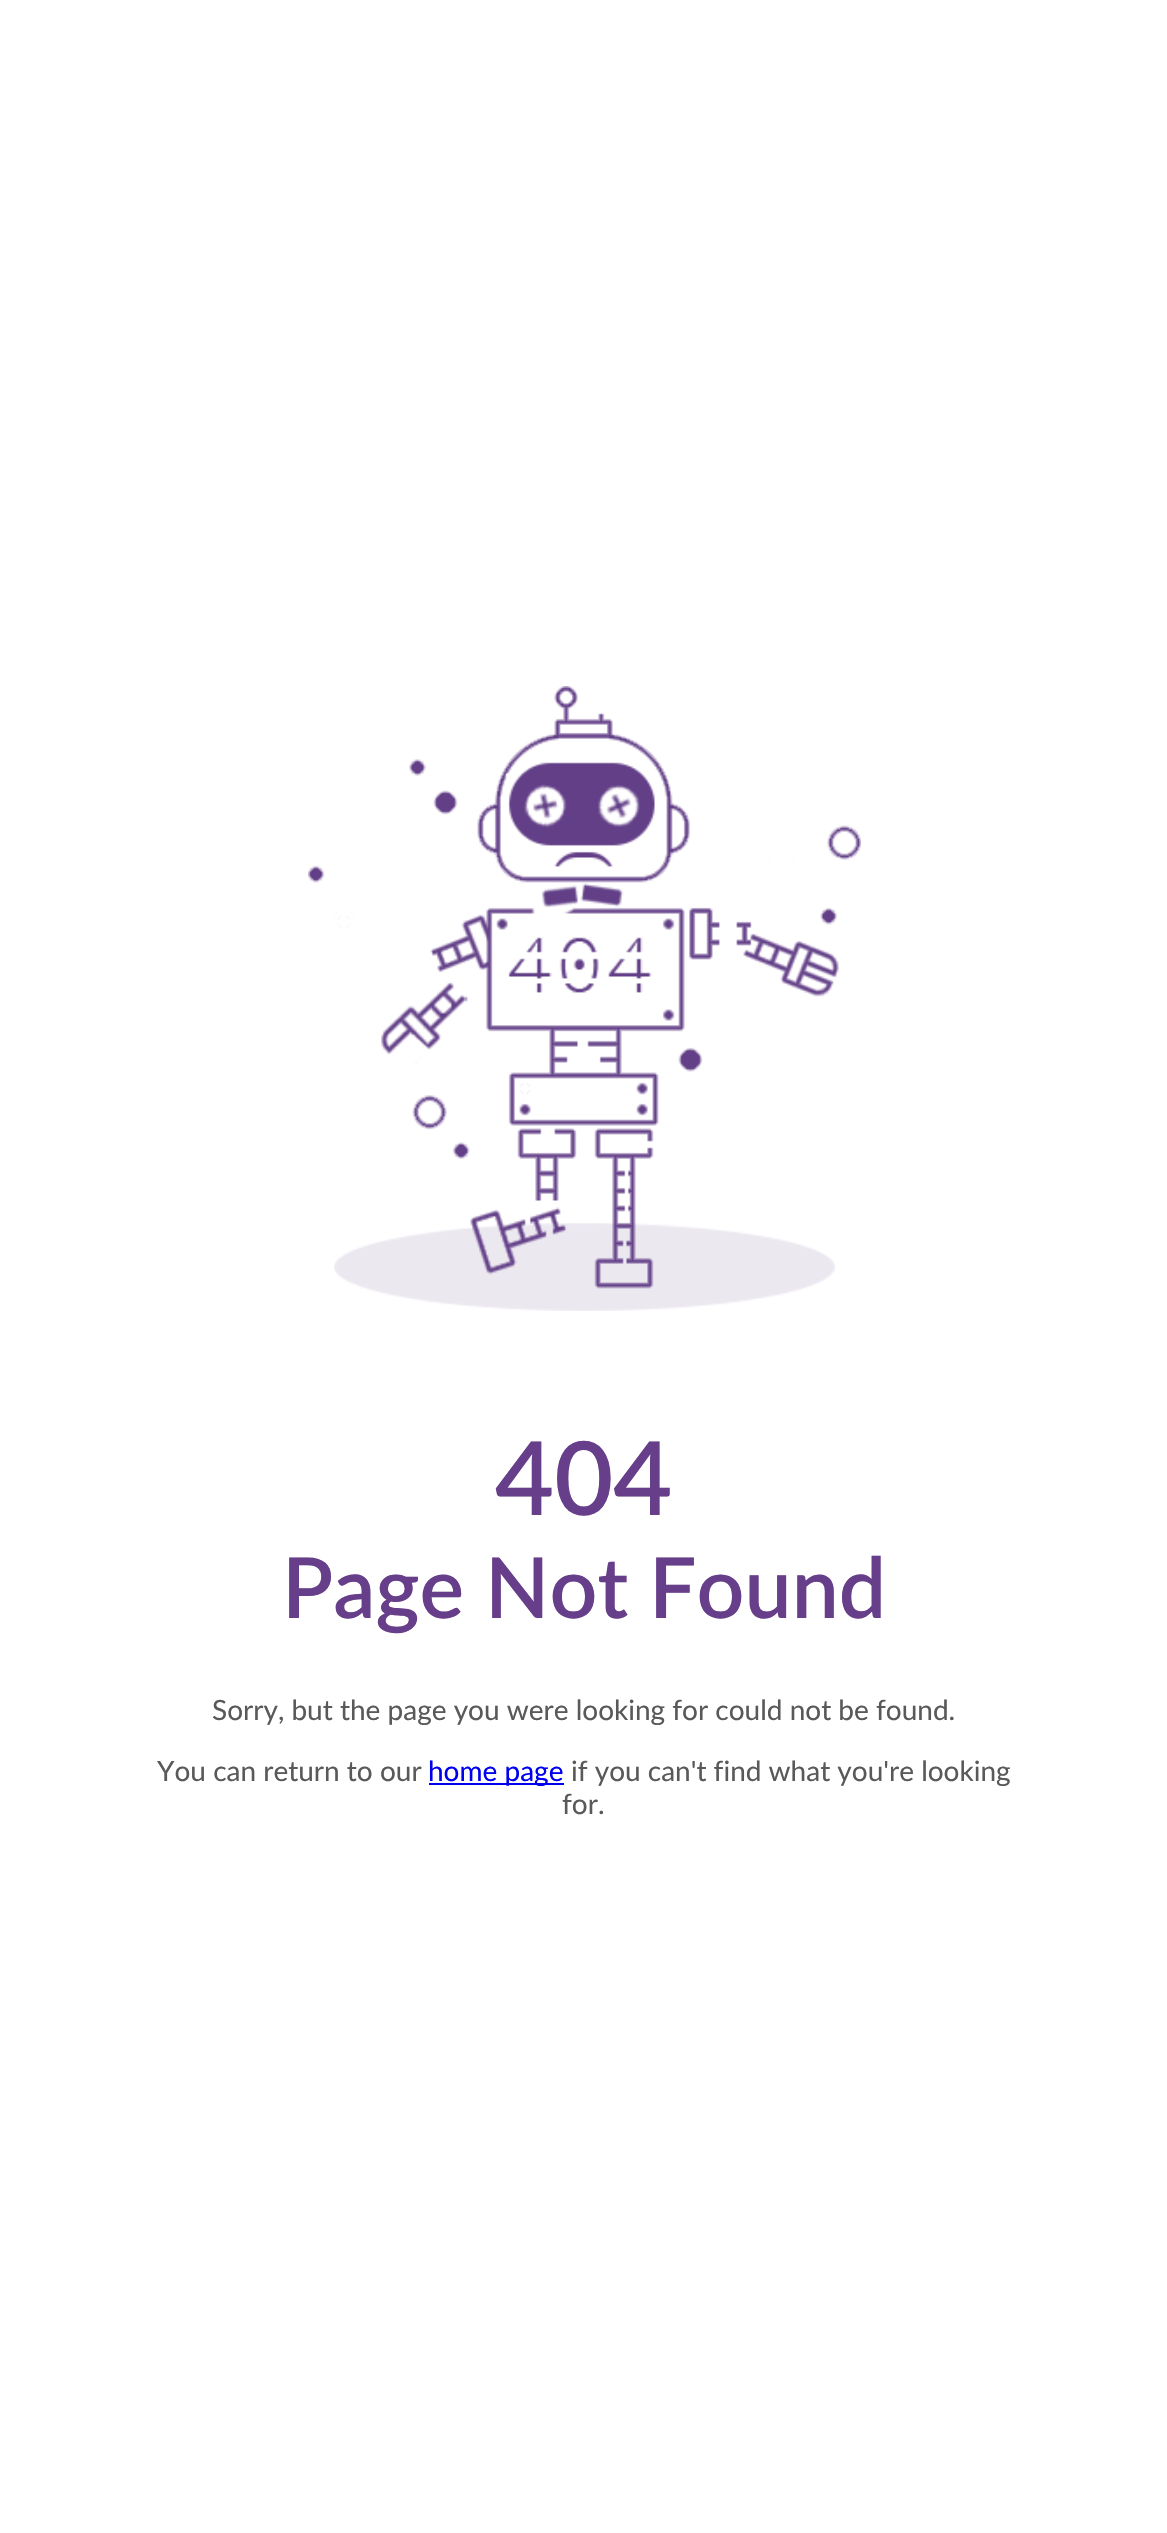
void draw(SkCanvas* canvas) {
  SkPaint paint;
  paint.setAntiAlias(true);
  auto face = [&](const char* family, int weight, float size, bool italic = false) {
    SkFontStyle style(weight, SkFontStyle::kNormal_Width,
      italic ? SkFontStyle::kItalic_Slant : SkFontStyle::kUpright_Slant);
    SkFont result(fontMgr->matchFamilyStyle(family, style), size);
    result.setSubpixel(true);
    return result;
  };
  auto paste = [&](const char* path, float x, float y, float w, float h) {
    auto image = SkImages::DeferredFromEncodedData(SkData::MakeFromFileName(path));
    canvas->drawImageRect(image, SkRect::MakeXYWH(x, y, w, h), SkSamplingOptions());
  };
  canvas->clear(0xffffffff);
  paste("img/1.png", 308, 686, 553, 625);
  paint.setColor(0xff0000ee);
  canvas->drawRect(SkRect::MakeXYWH(429, 1783, 135, 2), paint);
  auto f0 = face("Lato", 600, 102);
  paint.setColor(0xff673e89);
  canvas->drawString("404", 495, 1515, f0, paint);
  auto f1 = face("Lato", 600, 84);
  canvas->drawString("Page Not Found", 282, 1618, f1, paint);
  auto f2 = face("Lato", 400, 28);
  paint.setColor(0xff595959);
  canvas->drawString("Sorry, but the page you were looking for could not be found.", 212, 1720, f2, paint);
  canvas->drawString("You can return to our", 157, 1781, f2, paint);
  paint.setColor(0xff0000ee);
  canvas->drawString("home page", 428, 1781, f2, paint);
  paint.setColor(0xff595959);
  canvas->drawString("if you can't find what you're looking", 571, 1781, f2, paint);
  canvas->drawString("for.", 562, 1814, f2, paint);
}
